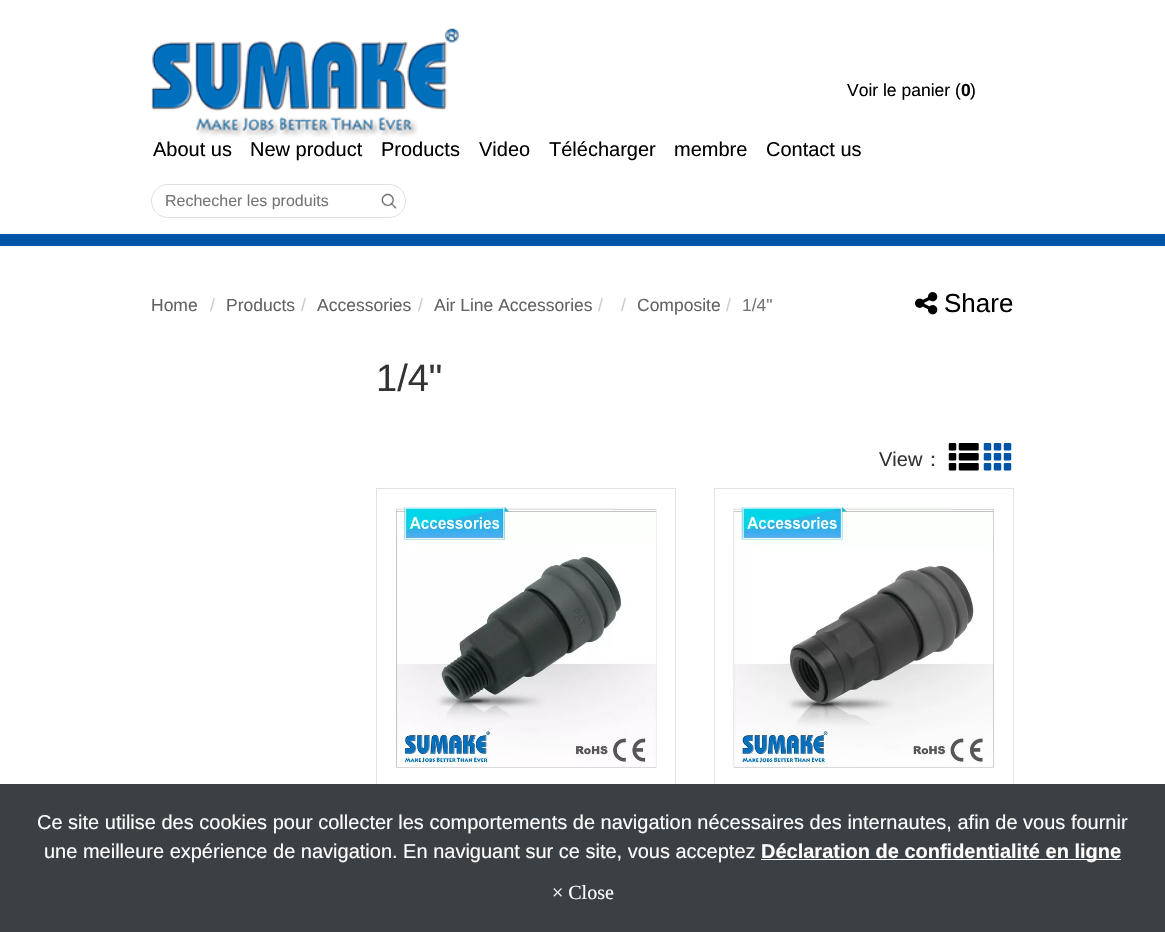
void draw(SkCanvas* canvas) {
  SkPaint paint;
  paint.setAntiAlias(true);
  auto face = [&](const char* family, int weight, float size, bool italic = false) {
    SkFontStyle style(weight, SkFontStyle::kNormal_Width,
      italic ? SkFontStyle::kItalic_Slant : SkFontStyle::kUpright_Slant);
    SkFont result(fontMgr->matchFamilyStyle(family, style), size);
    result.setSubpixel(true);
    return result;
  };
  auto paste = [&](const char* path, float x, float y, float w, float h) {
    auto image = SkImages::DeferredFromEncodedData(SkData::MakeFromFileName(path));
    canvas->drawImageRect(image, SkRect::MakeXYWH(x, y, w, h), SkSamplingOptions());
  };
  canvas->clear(0xffffffff);
  paste("img/1.png", 151, 28, 308, 109);
  paint.setStroke(true);
  paint.setStrokeWidth(1);
  paint.setColor(0xffe1e1e1);
  canvas->drawRoundRect(SkRect::MakeXYWH(151.5f, 184.5f, 254, 33), 16.5f, 16.5f, paint);
  paste("img/2.png", 381, 193, 16, 16);
  paint.setStroke(false);
  paint.setColor(0xff0054a7);
  canvas->drawRect(SkRect::MakeXYWH(0, 234, 1165, 12), paint);
  paste("img/3.png", 915, 292, 23, 23);
  paste("img/4.png", 948, 443, 31, 28);
  paste("img/5.png", 983, 443, 29, 28);
  paint.setStroke(true);
  paint.setColor(0xffe3e3e3);
  canvas->drawRect(SkRect::MakeXYWH(376.5f, 488.5f, 299, 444), paint);
  paste("img/6.png", 396, 507, 261, 261);
  canvas->drawRect(SkRect::MakeXYWH(714.5f, 488.5f, 299, 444), paint);
  paste("img/7.png", 733, 507, 261, 261);
  paint.setStroke(false);
  paint.setColor(0xff3b4045);
  canvas->drawRect(SkRect::MakeXYWH(0, 784, 1165, 148), paint);
  paint.setColor(0xffffffff);
  canvas->drawRect(SkRect::MakeXYWH(761, 859, 360, 1), paint);
  auto f0 = face("Liberation Sans", 400, 17.5f);
  paint.setColor(0xff000000);
  canvas->drawString("Voir le panier (", 847, 96, f0, paint);
  auto f1 = face("Liberation Sans", 700, 17.5f);
  canvas->drawString("0", 961, 96, f1, paint);
  canvas->drawString(")", 970, 96, f0, paint);
  auto f2 = face("Liberation Sans", 400, 20);
  {
    const struct { const char* s; float x, y; } items[] = {
      {"About us", 153, 156},
      {"New product", 250, 156},
      {"Products", 381, 156},
      {"Video", 479, 156},
      {"Télécharger", 549, 156},
      {"membre", 674, 156},
      {"Contact us", 766, 156},
    };
    for (auto [s, x, y] : items) {
      canvas->drawString(s, x, y, f2, paint);
    }
  }
  auto f3 = face("Liberation Sans", 400, 16);
  paint.setColor(0xff757575);
  canvas->drawString("Rechecher les produits", 165, 206, f3, paint);
  paint.setColor(0xff626262);
  canvas->drawString("Home", 151, 311, f0, paint);
  paint.setColor(0xffcccccc);
  canvas->drawString("/", 210, 311, f0, paint);
  paint.setColor(0xff626262);
  canvas->drawString("Products", 226, 311, f0, paint);
  paint.setColor(0xffcccccc);
  canvas->drawString("/", 301, 311, f0, paint);
  paint.setColor(0xff626262);
  canvas->drawString("Accessories", 317, 311, f0, paint);
  paint.setColor(0xffcccccc);
  canvas->drawString("/", 418, 311, f0, paint);
  paint.setColor(0xff626262);
  canvas->drawString("Air Line Accessories", 434, 311, f0, paint);
  paint.setColor(0xffcccccc);
  canvas->drawString("/", 598, 311, f0, paint);
  canvas->drawString("/", 621, 311, f0, paint);
  paint.setColor(0xff626262);
  canvas->drawString("Composite", 637, 311, f0, paint);
  paint.setColor(0xffcccccc);
  canvas->drawString("/", 726, 311, f0, paint);
  paint.setColor(0xff757575);
  canvas->drawString("1/4\"", 742, 311, f0, paint);
  auto f4 = face("Liberation Sans", 400, 26);
  paint.setColor(0xff000000);
  canvas->drawString("Share", 944, 312, f4, paint);
  auto f5 = face("Liberation Sans", 400, 38);
  paint.setColor(0xff333333);
  canvas->drawString("1/4\"", 376, 391, f5, paint);
  canvas->drawString("View", 879, 466, f2, paint);
  auto f6 = face("WenQuanYi Zen Hei", 500, 20);
  canvas->drawString("：", 923, 466, f6, paint);
  paint.setColor(0xffffffff);
  canvas->drawString("Ce site utilise des cookies pour collecter les comportements de navigation nécessaires des internautes, afin de vous fournir", 37, 829, f2, paint);
  canvas->drawString("une meilleure expérience de navigation. En naviguant sur ce site, vous acceptez", 44, 858, f2, paint);
  auto f7 = face("Liberation Sans", 700, 20);
  canvas->drawString("Déclaration de confidentialité en ligne", 761, 858, f7, paint);
  auto f8 = face("Liberation Serif", 400, 20);
  canvas->drawString("× Close", 552, 899, f8, paint);
}
